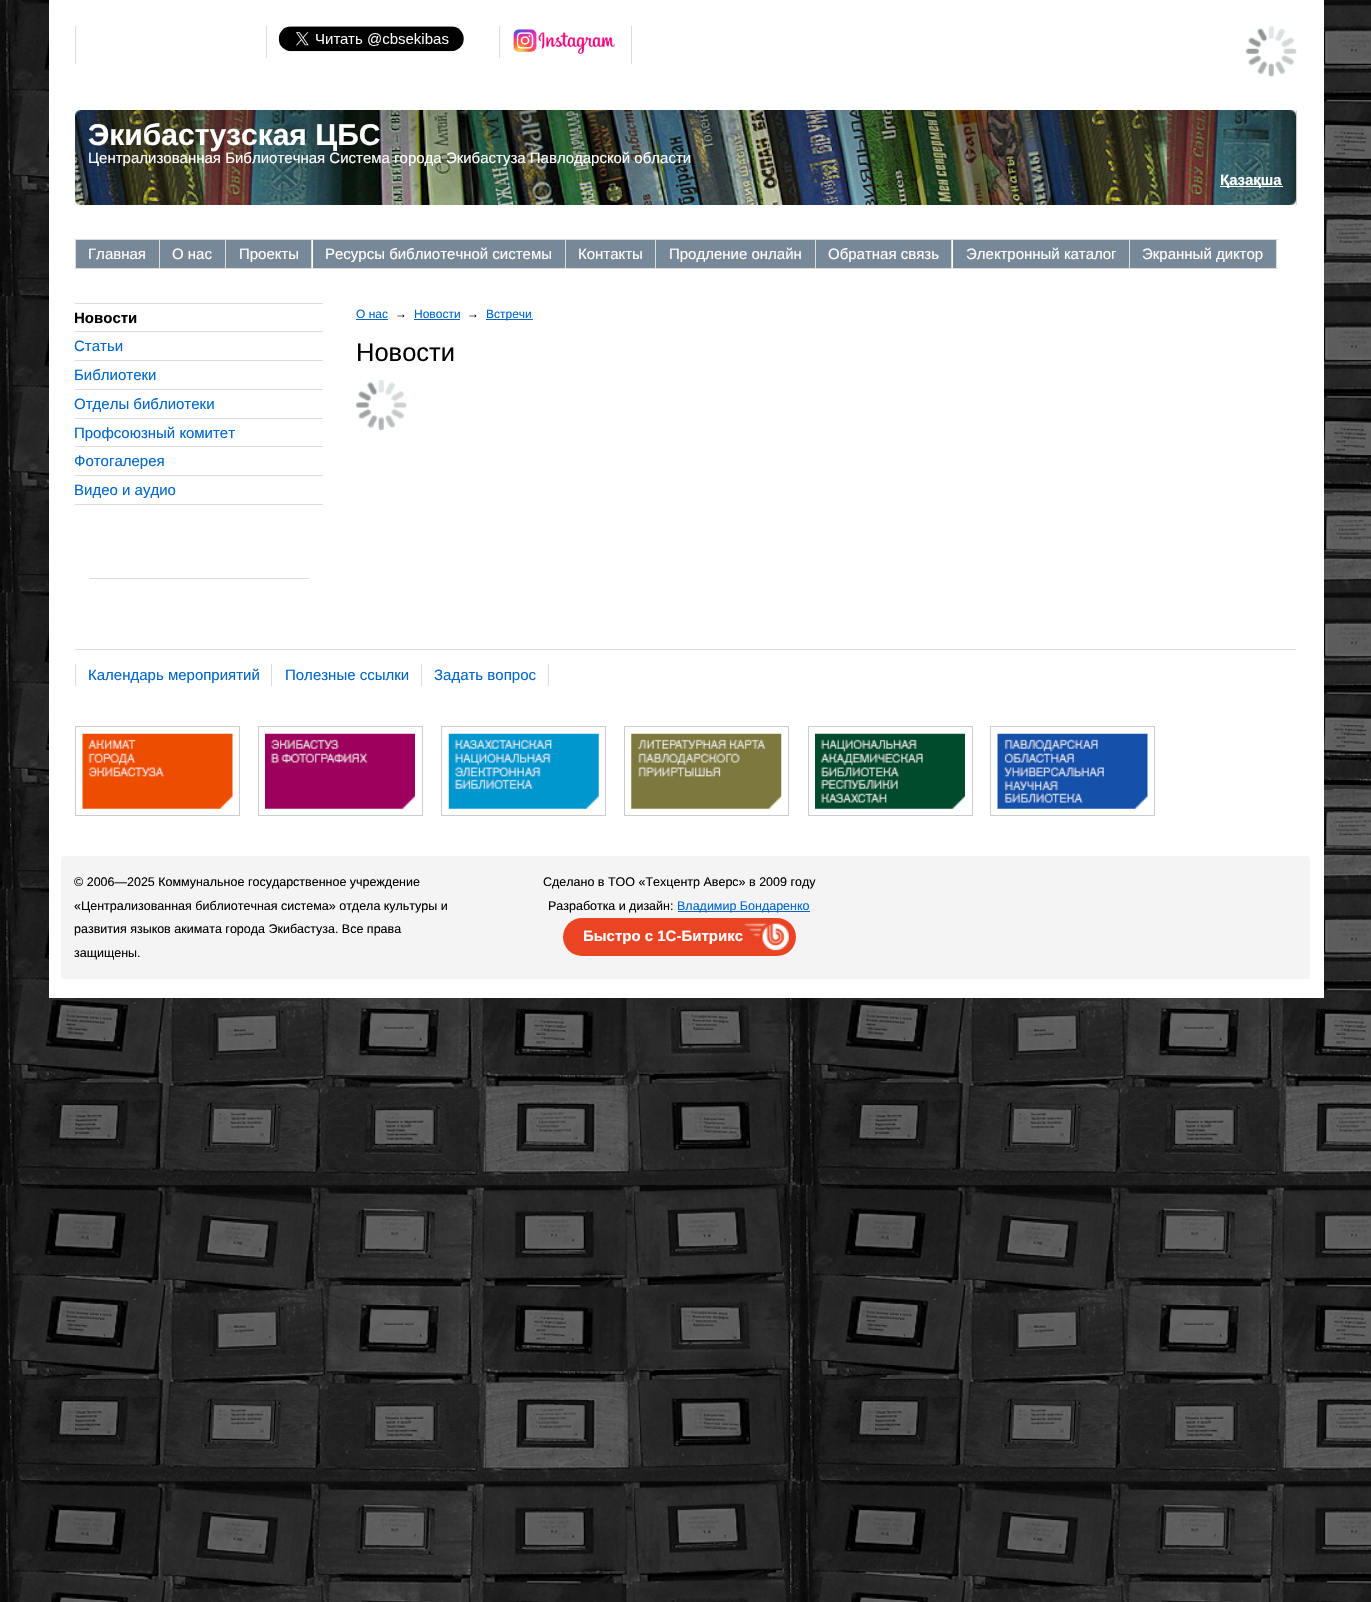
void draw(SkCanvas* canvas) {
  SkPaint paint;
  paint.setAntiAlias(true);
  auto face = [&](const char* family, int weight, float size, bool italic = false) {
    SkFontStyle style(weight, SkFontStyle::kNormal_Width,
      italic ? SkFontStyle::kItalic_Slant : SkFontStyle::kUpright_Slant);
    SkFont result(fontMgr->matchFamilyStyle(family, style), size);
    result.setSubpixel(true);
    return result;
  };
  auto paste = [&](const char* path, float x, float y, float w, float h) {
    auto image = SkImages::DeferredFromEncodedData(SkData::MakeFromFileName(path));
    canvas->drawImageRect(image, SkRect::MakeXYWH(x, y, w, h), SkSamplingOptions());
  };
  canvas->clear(0xffffffff);
  paste("img/1.png", 0, 0, 1371, 1602);
  {
    const struct { float x, y, w, h; SkColor color; } items[] = {
      {49, 0, 1275, 998, 0xffffffff},
      {75, 26, 1, 38, 0xffdcdcdc},
      {266, 26, 1, 32, 0xffdcdcdc},
      {499, 26, 1, 32, 0xffdcdcdc},
    };
    for (auto [x, y, w, h, color] : items) {
      paint.setColor(color);
      canvas->drawRect(SkRect::MakeXYWH(x, y, w, h), paint);
    }
  }
  paste("img/2.png", 278, 26, 186, 26);
  canvas->drawRect(SkRect::MakeXYWH(631, 26, 1, 38), paint);
  paste("img/3.png", 513, 29, 102, 25);
  paste("img/4.png", 1246, 26, 51, 51);
  paste("img/5.png", 75, 110, 1222, 95);
  paste("img/6.png", 75, 110, 7, 7);
  paste("img/7.png", 1290, 110, 7, 6);
  paint.setColor(0xffffffff);
  canvas->drawRect(SkRect::MakeXYWH(1220, 186, 63, 1), paint);
  paste("img/8.png", 75, 199, 7, 6);
  paste("img/9.png", 1290, 199, 7, 6);
  {
    const struct { float x, y, w, h; SkColor color; } items[] = {
      {75, 239, 1, 30, 0xffdcdcdc},
      {76, 240, 83, 28, 0xff778899},
      {76, 239, 1202, 1, 0xffdcdcdc},
      {159, 239, 1, 30, 0xffdcdcdc},
      {76, 268, 84, 1, 0xffdcdcdc},
      {160, 240, 65, 28, 0xff778899},
      {225, 239, 1, 30, 0xffdcdcdc},
      {160, 268, 66, 1, 0xffdcdcdc},
      {226, 240, 85, 28, 0xff778899},
      {311, 239, 1, 30, 0xffdcdcdc},
      {226, 268, 87, 1, 0xffdcdcdc},
      {313, 240, 252, 28, 0xff778899},
      {565, 239, 1, 30, 0xffdcdcdc},
      {313, 268, 253, 1, 0xffdcdcdc},
      {566, 240, 89, 28, 0xff778899},
      {655, 239, 1, 30, 0xffdcdcdc},
      {566, 268, 90, 1, 0xffdcdcdc},
      {656, 240, 159, 28, 0xff778899},
      {815, 239, 1, 30, 0xffdcdcdc},
      {656, 268, 160, 1, 0xffdcdcdc},
      {816, 240, 135, 28, 0xff778899},
      {951, 239, 1, 30, 0xffdcdcdc},
      {816, 268, 137, 1, 0xffdcdcdc},
      {953, 240, 176, 28, 0xff778899},
      {1129, 239, 1, 30, 0xffdcdcdc},
      {953, 268, 177, 1, 0xffdcdcdc},
      {1130, 240, 146, 28, 0xff778899},
      {1276, 239, 1, 30, 0xffdcdcdc},
      {1130, 268, 148, 1, 0xffdcdcdc},
      {75, 303, 248, 1, 0xffdcdcdc},
      {75, 331, 248, 1, 0xffdcdcdc},
      {75, 360, 248, 1, 0xffdcdcdc},
      {75, 389, 248, 1, 0xffdcdcdc},
      {75, 418, 248, 1, 0xffdcdcdc},
      {75, 446, 248, 1, 0xffdcdcdc},
      {75, 475, 248, 1, 0xffdcdcdc},
      {75, 504, 248, 1, 0xffdcdcdc},
      {89, 578, 220, 1, 0xffdcdcdc},
      {356, 319, 32, 1, 0xff0066cc},
      {414, 319, 46, 1, 0xff0066cc},
      {486, 319, 47, 1, 0xff0066cc},
    };
    for (auto [x, y, w, h, color] : items) {
      paint.setColor(color);
      canvas->drawRect(SkRect::MakeXYWH(x, y, w, h), paint);
    }
  }
  paste("img/10.png", 356, 380, 51, 50);
  {
    const struct { float x, y, w, h; SkColor color; } items[] = {
      {75, 649, 1221, 1, 0xffdcdcdc},
      {75, 664, 1, 22, 0xffdcdcdc},
      {271, 664, 1, 22, 0xffdcdcdc},
      {421, 664, 1, 22, 0xffdcdcdc},
      {548, 664, 1, 22, 0xffdcdcdc},
    };
    for (auto [x, y, w, h, color] : items) {
      paint.setColor(color);
      canvas->drawRect(SkRect::MakeXYWH(x, y, w, h), paint);
    }
  }
  paint.setStroke(true);
  paint.setStrokeWidth(1);
  paint.setColor(0xffcccccc);
  canvas->drawRect(SkRect::MakeXYWH(75.5f, 726.5f, 164, 89), paint);
  paste("img/11.png", 82, 733, 151, 76);
  canvas->drawRect(SkRect::MakeXYWH(258.5f, 726.5f, 164, 89), paint);
  paste("img/12.png", 265, 733, 150, 76);
  canvas->drawRect(SkRect::MakeXYWH(441.5f, 726.5f, 164, 89), paint);
  paste("img/13.png", 448, 733, 151, 76);
  canvas->drawRect(SkRect::MakeXYWH(624.5f, 726.5f, 164, 89), paint);
  paste("img/14.png", 631, 733, 151, 76);
  canvas->drawRect(SkRect::MakeXYWH(808.5f, 726.5f, 164, 89), paint);
  paste("img/15.png", 815, 733, 150, 76);
  canvas->drawRect(SkRect::MakeXYWH(990.5f, 726.5f, 164, 89), paint);
  paste("img/16.png", 997, 733, 151, 76);
  paint.setStroke(false);
  paint.setColor(0xfff4f4f4);
  canvas->drawRect(SkRect::MakeXYWH(61, 856, 1249, 123), paint);
  paste("img/17.png", 61, 856, 2, 2);
  paste("img/18.png", 1308, 856, 2, 3);
  paint.setColor(0xff0066cc);
  canvas->drawRect(SkRect::MakeXYWH(678, 911, 132, 1), paint);
  paint.setColor(0xffe94524);
  canvas->drawRoundRect(SkRect::MakeXYWH(563, 918, 233, 38), 19, 19, paint);
  paste("img/19.png", 743, 923, 46, 28);
  paste("img/20.png", 61, 977, 2, 2);
  paste("img/21.png", 1308, 976, 2, 3);
  auto f0 = face("Liberation Sans", 700, 30);
  paint.setColor(0xffffffff);
  canvas->drawString("Экибастузская ЦБС", 88, 145, f0, paint);
  auto f1 = face("Liberation Sans", 400, 15);
  canvas->drawString("Централизованная Библиотечная Система города Экибастуза Павлодарской области", 88, 163, f1, paint);
  auto f2 = face("Liberation Sans", 700, 15);
  canvas->drawString("Қазақша", 1220, 185, f2, paint);
  {
    const struct { const char* s; float x, y; } items[] = {
      {"Главная", 88, 259},
      {"О нас", 172, 259},
      {"Проекты", 239, 259},
      {"Ресурсы библиотечной системы", 325, 259},
      {"Контакты", 578, 259},
      {"Продление онлайн", 669, 259},
      {"Обратная связь", 828, 259},
      {"Электронный каталог", 966, 259},
      {"Экранный диктор", 1142, 259},
    };
    for (auto [s, x, y] : items) {
      canvas->drawString(s, x, y, f1, paint);
    }
  }
  paint.setColor(0xff000000);
  canvas->drawString("Новости", 74, 323, f2, paint);
  paint.setColor(0xff0066cc);
  {
    const struct { const char* s; float x, y; } items[] = {
      {"Статьи", 74, 351},
      {"Библиотеки", 74, 380},
      {"Отделы библиотеки", 74, 409},
      {"Профсоюзный комитет", 74, 438},
      {"Фотогалерея", 74, 466},
      {"Видео и аудио", 74, 495},
    };
    for (auto [s, x, y] : items) {
      canvas->drawString(s, x, y, f1, paint);
    }
  }
  auto f3 = face("Liberation Sans", 400, 12);
  canvas->drawString("О нас", 356, 318, f3, paint);
  paint.setColor(0xff000000);
  canvas->drawString("→", 395, 318, f3, paint);
  paint.setColor(0xff0066cc);
  canvas->drawString("Новости", 414, 318, f3, paint);
  paint.setColor(0xff000000);
  canvas->drawString("→", 467, 318, f3, paint);
  paint.setColor(0xff0066cc);
  canvas->drawString("Встречи", 486, 318, f3, paint);
  auto f4 = face("Liberation Sans", 400, 25.5f);
  paint.setColor(0xff000000);
  canvas->drawString("Новости", 356, 361, f4, paint);
  paint.setColor(0xff0066cc);
  {
    const struct { const char* s; float x, y; } items[] = {
      {"Календарь мероприятий", 88, 680},
      {"Полезные ссылки", 285, 680},
      {"Задать вопрос", 434, 680},
    };
    for (auto [s, x, y] : items) {
      canvas->drawString(s, x, y, f1, paint);
    }
  }
  auto f5 = face("Liberation Sans", 400, 12.5f);
  paint.setColor(0xff000000);
  {
    const struct { const char* s; float x, y; } items[] = {
      {"© 2006—2025 Коммунальное государственное учреждение", 74, 886},
      {"«Централизованная библиотечная система» отдела культуры и", 74, 910},
      {"развития языков акимата города Экибастуза. Все права", 74, 933},
      {"защищены.", 74, 957},
      {"Сделано в ТОО «Техцентр Аверс» в 2009 году", 543, 886},
      {"Разработка и дизайн:", 548, 910},
    };
    for (auto [s, x, y] : items) {
      canvas->drawString(s, x, y, f5, paint);
    }
  }
  paint.setColor(0xff0066cc);
  canvas->drawString("Владимир Бондаренко", 677, 910, f5, paint);
  paint.setColor(0xffffffff);
  canvas->drawString("Быстро с 1С-Битрикс", 583, 941, f2, paint);
}
